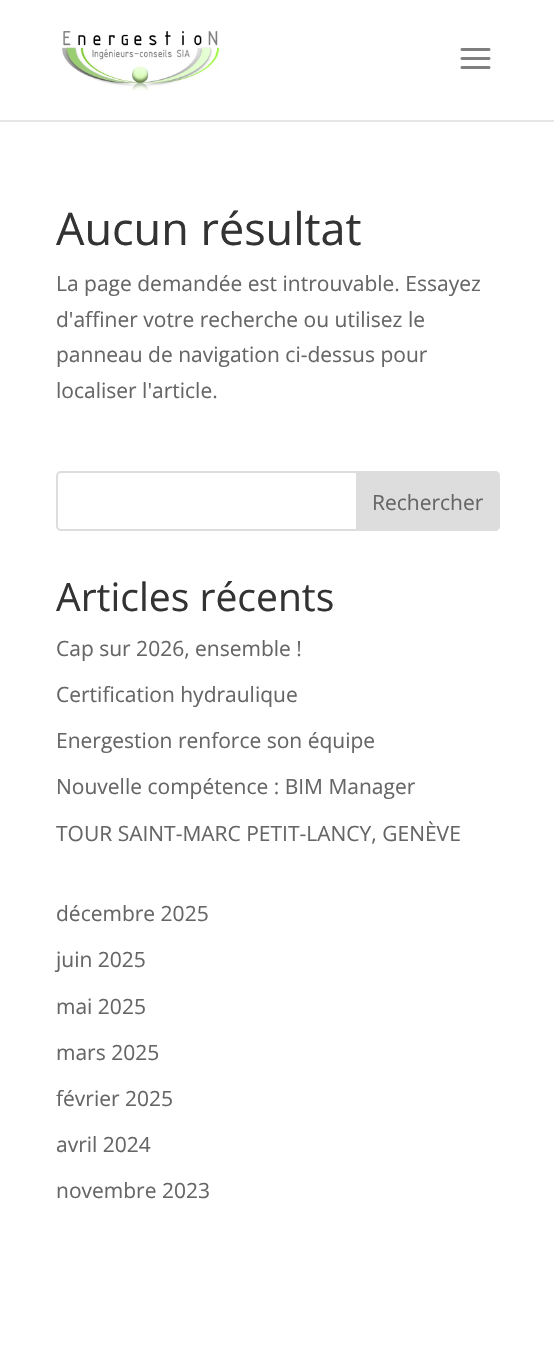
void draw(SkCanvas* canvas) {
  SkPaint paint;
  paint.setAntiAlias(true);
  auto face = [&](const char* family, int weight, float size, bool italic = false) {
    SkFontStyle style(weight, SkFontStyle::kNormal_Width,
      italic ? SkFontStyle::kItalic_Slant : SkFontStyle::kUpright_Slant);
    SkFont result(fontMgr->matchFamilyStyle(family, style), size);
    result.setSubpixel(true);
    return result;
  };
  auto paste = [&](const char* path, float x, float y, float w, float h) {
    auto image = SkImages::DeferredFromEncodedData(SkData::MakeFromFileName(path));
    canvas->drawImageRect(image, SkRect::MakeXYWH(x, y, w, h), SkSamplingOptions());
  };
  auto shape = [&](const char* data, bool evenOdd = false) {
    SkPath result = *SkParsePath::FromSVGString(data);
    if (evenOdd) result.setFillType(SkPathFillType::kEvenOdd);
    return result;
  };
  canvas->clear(0xffffffff);
  paint.setColor(0xffe6e6e6);
  canvas->drawRect(SkRect::MakeXYWH(0, 120, 554, 2), paint);
  paste("img/1.png", 62, 31, 158, 60);
  paste("img/2.png", 460, 48, 31, 21);
  paint.setStroke(true);
  paint.setStrokeWidth(2);
  paint.setColor(0xffdddddd);
  canvas->drawRoundRect(SkRect::MakeXYWH(57, 472, 442, 58), 4, 4, paint);
  paint.setStroke(false);
  canvas->drawPath(shape("M357 472H495C497 472 499 474 499 476V526C499 528 497 530 495 530H357Z"), paint);
  paint.setStroke(true);
  canvas->drawPath(shape("M357 472H495C497 472 499 474 499 476V526C499 528 497 530 495 530H357Z"), paint);
  auto f0 = face("Open Sans", 400, 45);
  paint.setStroke(false);
  paint.setColor(0xff333333);
  canvas->drawString("Aucun résultat", 56, 245, f0, paint);
  auto f1 = face("Open Sans", 400, 21);
  paint.setColor(0xff666666);
  {
    const struct { const char* s; float x, y; } items[] = {
      {"La page demandée est introuvable. Essayez", 56, 291},
      {"d'affiner votre recherche ou utilisez le", 56, 327},
      {"panneau de navigation ci-dessus pour", 56, 362},
      {"localiser l'article.", 56, 398},
      {"Rechercher", 372, 510},
    };
    for (auto [s, x, y] : items) {
      canvas->drawString(s, x, y, f1, paint);
    }
  }
  auto f2 = face("Open Sans", 400, 39);
  paint.setColor(0xff333333);
  canvas->drawString("Articles récents", 56, 611, f2, paint);
  paint.setColor(0xff666666);
  {
    const struct { const char* s; float x, y; } items[] = {
      {"Cap sur 2026, ensemble !", 56, 656},
      {"Certification hydraulique", 56, 702},
      {"Energestion renforce son équipe", 56, 748},
      {"Nouvelle compétence : BIM Manager", 56, 794},
      {"TOUR SAINT-MARC PETIT-LANCY, GENÈVE", 56, 841},
      {"décembre 2025", 56, 921},
      {"juin 2025", 56, 967},
      {"mai 2025", 56, 1014},
      {"mars 2025", 56, 1060},
      {"février 2025", 56, 1106},
      {"avril 2024", 56, 1152},
      {"novembre 2023", 56, 1198},
    };
    for (auto [s, x, y] : items) {
      canvas->drawString(s, x, y, f1, paint);
    }
  }
}
